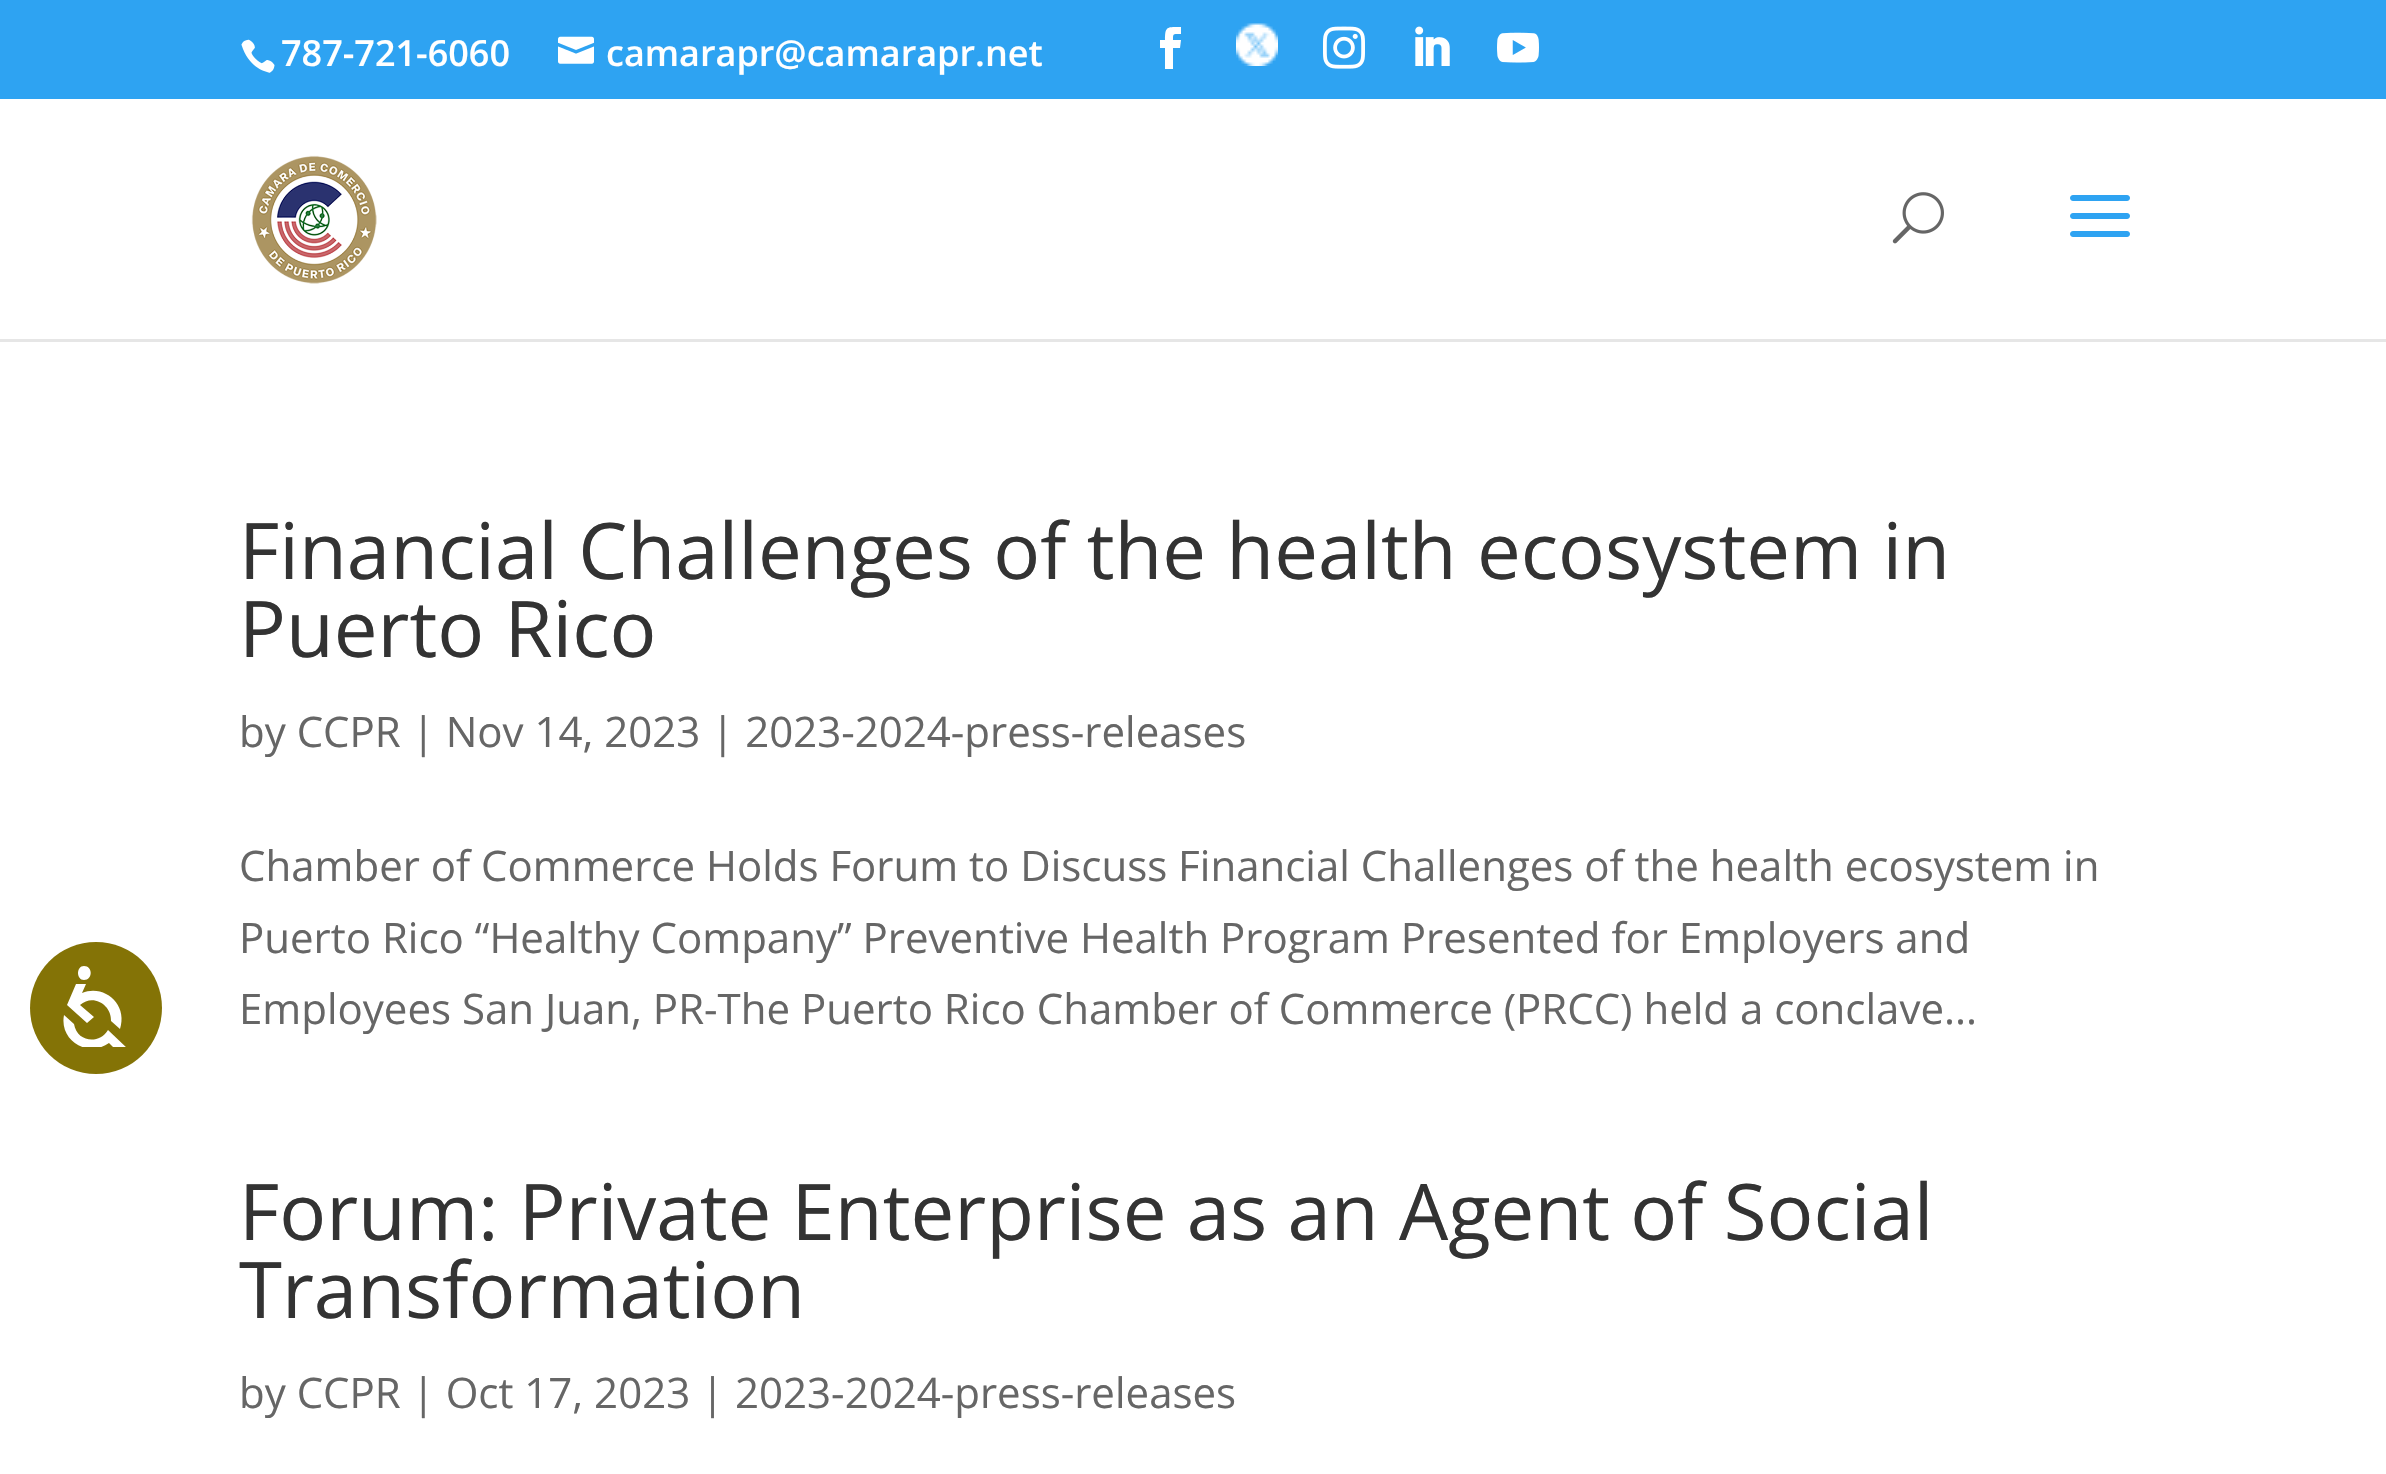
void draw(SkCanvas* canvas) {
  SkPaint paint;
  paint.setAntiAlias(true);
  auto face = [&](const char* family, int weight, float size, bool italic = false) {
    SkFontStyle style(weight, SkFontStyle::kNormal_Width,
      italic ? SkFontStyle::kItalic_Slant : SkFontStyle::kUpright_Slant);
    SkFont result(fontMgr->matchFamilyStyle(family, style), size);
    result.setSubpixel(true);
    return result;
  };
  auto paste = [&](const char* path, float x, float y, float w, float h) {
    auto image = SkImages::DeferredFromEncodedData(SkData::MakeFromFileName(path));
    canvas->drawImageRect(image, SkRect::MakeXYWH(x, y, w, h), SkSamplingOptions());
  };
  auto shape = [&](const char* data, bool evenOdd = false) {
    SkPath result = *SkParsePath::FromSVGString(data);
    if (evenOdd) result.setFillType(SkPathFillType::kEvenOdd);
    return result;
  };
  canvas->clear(0xffffffff);
  paint.setColor(0xff847306);
  canvas->drawCircle(96, 1008, 66, paint);
  canvas->save();
  canvas->clipRect(SkRect::MakeXYWH(54, 966, 84, 81));
  paint.setColor(0xffffffff);
  canvas->drawPath(shape("M109 1043L115 1049H128L108 1030C99 1045 77 1042 74 1024L64 1015C59 1041 88 1058 109 1043Z", true), paint);
  canvas->restore();
  canvas->drawPath(shape("M120 1029C128 1005 105 984 82 993L86 984H76L67 1005L87 1023L94 1017L80 1005C93 993 112 1005 111 1021ZM84 966C93 966 93 980 84 980C76 980 76 966 84 966Z", true), paint);
  paint.setColor(0xff2ea3f2);
  canvas->drawRect(SkRect::MakeXYWH(0, 0, 2386, 99), paint);
  paste("img/1.png", 241, 39, 34, 34);
  paste("img/2.png", 558, 36, 36, 28);
  paint.setColor(0xffffffff);
  canvas->drawPath(shape("M1165 69H1173V48H1180L1181 40H1173C1173 33 1173 34 1181 34V27C1167 27 1165 26 1165 40H1160V48H1165Z"), paint);
  paste("img/3.png", 1236, 23, 42, 43);
  paste("img/4.png", 1323, 26, 42, 43);
  paste("img/5.png", 1415, 26, 35, 40);
  paste("img/6.png", 1497, 32, 42, 31);
  paint.setColor(0xffe6e6e6);
  canvas->drawRect(SkRect::MakeXYWH(0, 339, 2386, 3), paint);
  paste("img/7.png", 251, 155, 126, 129);
  paste("img/8.png", 1892, 192, 52, 52);
  paste("img/9.png", 2070, 195, 60, 42);
  auto f0 = face("Open Sans", 600, 36);
  paint.setColor(0xffffffff);
  canvas->drawString("787-721-6060", 281, 66, f0, paint);
  canvas->drawString("camarapr@camarapr.net", 606, 66, f0, paint);
  auto f1 = face("Open Sans", 400, 78);
  paint.setColor(0xff333333);
  canvas->drawString("Financial Challenges of the health ecosystem in", 239, 579, f1, paint);
  canvas->drawString("Puerto Rico", 239, 657, f1, paint);
  auto f2 = face("Open Sans", 400, 42);
  paint.setColor(0xff666666);
  {
    const struct { const char* s; float x, y; } items[] = {
      {"by CCPR | Nov 14, 2023 | 2023-2024-press-releases", 239, 747},
      {"Chamber of Commerce Holds Forum to Discuss Financial Challenges of the health ecosystem in", 239, 881},
      {"Puerto Rico “Healthy Company” Preventive Health Program Presented for Employers and", 239, 953},
      {"Employees San Juan, PR-The Puerto Rico Chamber of Commerce (PRCC) held a conclave...", 239, 1024},
    };
    for (auto [s, x, y] : items) {
      canvas->drawString(s, x, y, f2, paint);
    }
  }
  paint.setColor(0xff333333);
  canvas->drawString("Forum: Private Enterprise as an Agent of Social", 239, 1240, f1, paint);
  canvas->drawString("Transformation", 239, 1318, f1, paint);
  paint.setColor(0xff666666);
  canvas->drawString("by CCPR | Oct 17, 2023 | 2023-2024-press-releases", 239, 1408, f2, paint);
}
